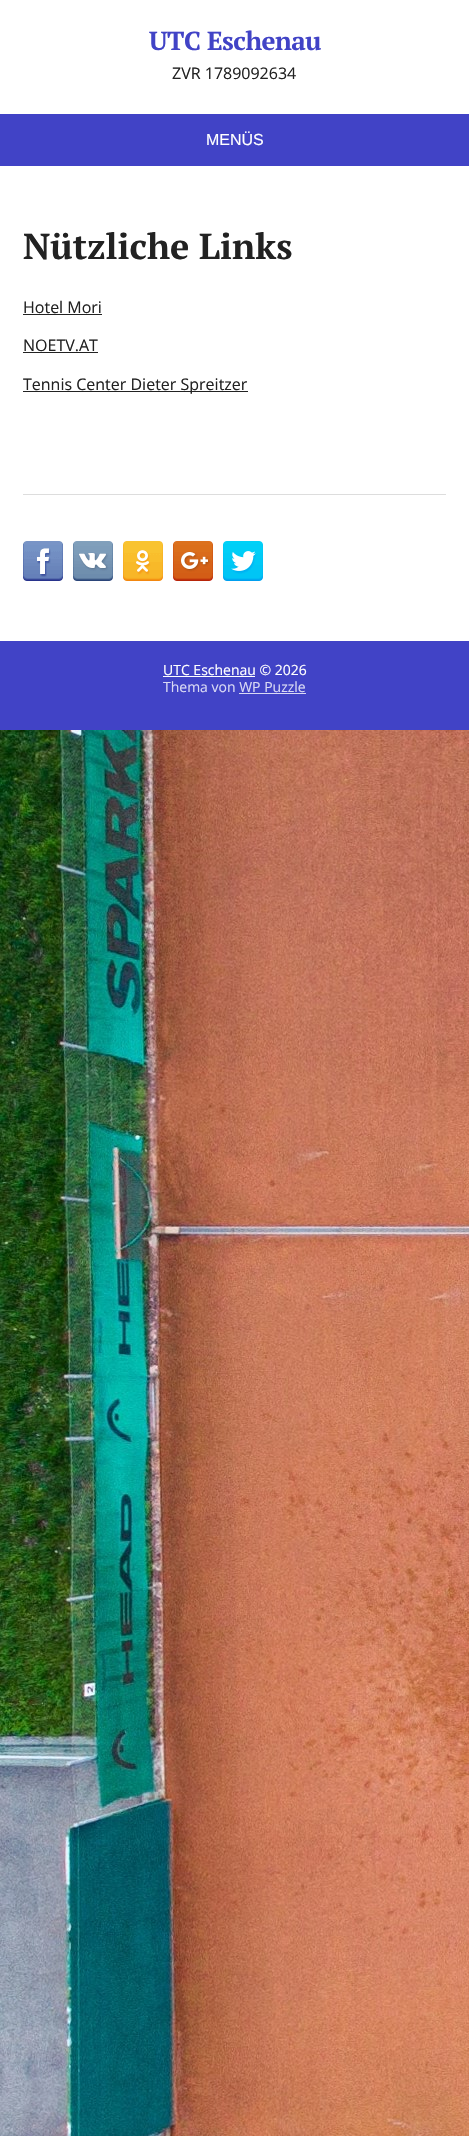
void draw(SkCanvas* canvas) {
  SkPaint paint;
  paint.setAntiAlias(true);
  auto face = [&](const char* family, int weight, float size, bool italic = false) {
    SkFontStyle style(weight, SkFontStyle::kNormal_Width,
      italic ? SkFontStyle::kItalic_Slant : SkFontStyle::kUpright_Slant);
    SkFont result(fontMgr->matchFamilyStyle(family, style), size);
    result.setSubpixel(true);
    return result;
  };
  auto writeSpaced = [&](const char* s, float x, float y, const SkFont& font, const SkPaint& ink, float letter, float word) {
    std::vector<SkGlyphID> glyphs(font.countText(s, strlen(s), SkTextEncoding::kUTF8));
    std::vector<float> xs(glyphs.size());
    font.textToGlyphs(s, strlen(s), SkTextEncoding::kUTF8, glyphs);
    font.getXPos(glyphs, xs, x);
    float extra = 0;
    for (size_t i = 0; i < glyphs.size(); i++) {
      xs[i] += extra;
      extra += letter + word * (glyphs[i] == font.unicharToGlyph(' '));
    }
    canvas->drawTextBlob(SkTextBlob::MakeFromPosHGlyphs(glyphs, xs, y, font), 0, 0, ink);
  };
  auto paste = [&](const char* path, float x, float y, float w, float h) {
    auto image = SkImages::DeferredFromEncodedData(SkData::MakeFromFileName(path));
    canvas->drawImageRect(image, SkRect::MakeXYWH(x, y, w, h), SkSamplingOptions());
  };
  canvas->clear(0xffffffff);
  paste("img/1.png", 0, 730, 469, 1406);
  {
    const struct { float x, y, w, h; SkColor color; } items[] = {
      {0, 114, 469, 52, 0xff4143c6},
      {23, 314, 79, 1, 0xff222222},
      {23, 352, 75, 1, 0xff222222},
      {23, 391, 225, 1, 0xff222222},
      {23, 494, 423, 1, 0xffdddddd},
    };
    for (auto [x, y, w, h, color] : items) {
      paint.setColor(color);
      canvas->drawRect(SkRect::MakeXYWH(x, y, w, h), paint);
    }
  }
  paste("img/2.png", 23, 541, 40, 40);
  paste("img/3.png", 73, 541, 40, 40);
  paste("img/4.png", 123, 541, 40, 40);
  paste("img/5.png", 173, 541, 40, 40);
  paste("img/6.png", 223, 541, 40, 40);
  {
    const struct { float x, y, w, h; SkColor color; } items[] = {
      {0, 641, 469, 89, 0xff4143c6},
      {163, 676, 92, 1, 0xffffffff},
      {239, 693, 67, 1, 0xffd9d9f4},
    };
    for (auto [x, y, w, h, color] : items) {
      paint.setColor(color);
      canvas->drawRect(SkRect::MakeXYWH(x, y, w, h), paint);
    }
  }
  auto f0 = face("PT Serif", 700, 26);
  paint.setColor(0xff4143c6);
  writeSpaced("UTC Eschenau", 149, 50, f0, paint, -0.5f, 0);
  auto f1 = face("Open Sans", 400, 16);
  paint.setColor(0xff222222);
  canvas->drawString("ZVR 1789092634", 172, 79, f1, paint);
  auto f2 = face("Liberation Sans", 400, 16);
  paint.setColor(0xffffffff);
  canvas->drawString("MENÜS", 206, 145, f2, paint);
  auto f3 = face("PT Serif", 700, 36);
  paint.setColor(0xff222222);
  canvas->drawString("Nützliche Links", 23, 259, f3, paint);
  {
    const struct { const char* s; float x, y; } items[] = {
      {"Hotel Mori", 23, 313},
      {"NOETV.AT", 23, 351},
      {"Tennis Center Dieter Spreitzer", 23, 390},
    };
    for (auto [s, x, y] : items) {
      canvas->drawString(s, x, y, f1, paint);
    }
  }
  auto f4 = face("Open Sans", 400, 14);
  paint.setColor(0xffffffff);
  canvas->drawString("UTC Eschenau © 2026", 163, 675, f4, paint);
  paint.setColor(0xffd9d9f4);
  canvas->drawString("Thema von WP Puzzle", 163, 692, f4, paint);
}
